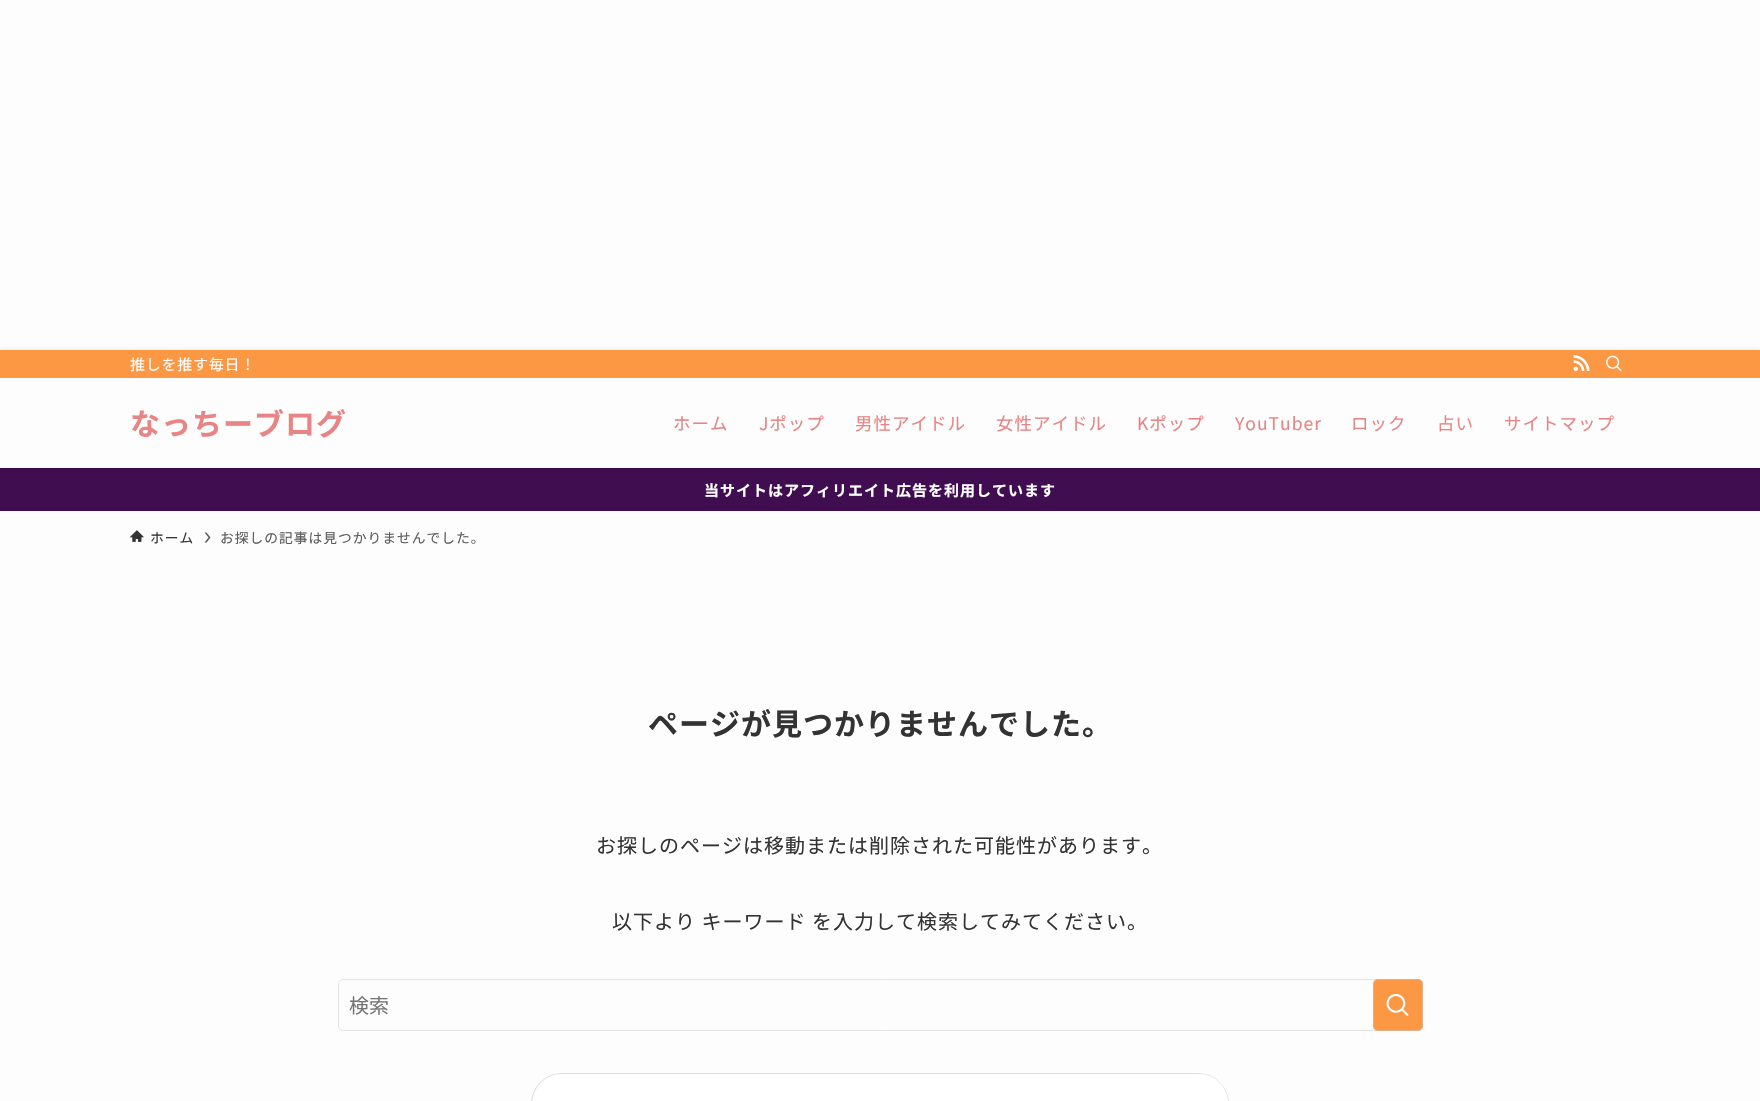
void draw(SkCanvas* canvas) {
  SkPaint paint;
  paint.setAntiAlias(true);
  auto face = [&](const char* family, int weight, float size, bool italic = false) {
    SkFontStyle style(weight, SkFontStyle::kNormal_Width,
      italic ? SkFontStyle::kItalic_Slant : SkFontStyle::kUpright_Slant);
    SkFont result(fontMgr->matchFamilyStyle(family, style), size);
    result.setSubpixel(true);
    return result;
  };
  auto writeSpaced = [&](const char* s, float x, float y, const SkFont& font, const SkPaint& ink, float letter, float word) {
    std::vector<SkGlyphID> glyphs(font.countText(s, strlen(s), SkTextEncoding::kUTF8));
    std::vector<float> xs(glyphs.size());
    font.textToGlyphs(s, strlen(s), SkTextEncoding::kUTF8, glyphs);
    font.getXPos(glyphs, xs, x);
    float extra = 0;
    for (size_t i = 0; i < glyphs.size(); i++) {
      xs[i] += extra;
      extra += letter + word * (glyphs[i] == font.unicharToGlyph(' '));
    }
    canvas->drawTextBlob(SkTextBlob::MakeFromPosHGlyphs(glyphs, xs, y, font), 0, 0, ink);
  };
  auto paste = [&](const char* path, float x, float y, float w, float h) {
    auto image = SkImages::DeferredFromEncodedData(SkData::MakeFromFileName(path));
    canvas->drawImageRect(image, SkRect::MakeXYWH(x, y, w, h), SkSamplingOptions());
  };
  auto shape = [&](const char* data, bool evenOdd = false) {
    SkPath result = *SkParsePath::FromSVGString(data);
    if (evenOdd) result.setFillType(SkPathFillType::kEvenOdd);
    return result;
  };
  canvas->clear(0xfffdfdfd);
  paint.setColor(0xff400d51);
  canvas->drawRect(SkRect::MakeXYWH(0, 468, 1760, 43), paint);
  paint.setColor(0x1f000000);
  paint.setMaskFilter(SkMaskFilter::MakeBlur(kNormal_SkBlurStyle, 2.5f));
  canvas->drawRect(SkRect::MakeXYWH(0, 351, 1760, 118), paint);
  paint.setMaskFilter(nullptr);
  paint.setColor(0xfffdfdfd);
  canvas->drawRect(SkRect::MakeXYWH(0, 378, 1760, 90), paint);
  paint.setColor(0xfffc9744);
  canvas->drawRect(SkRect::MakeXYWH(0, 350, 1760, 28), paint);
  paste("img/1.png", 1573, 355, 17, 16);
  paste("img/2.png", 1606, 355, 16, 16);
  paste("img/3.png", 130, 530, 14, 12);
  paint.setColor(0xff5b5b5b);
  canvas->drawPath(shape("M206.5 532.5H204.5L208.5 537.5L204.5 542.5H206.5L210.5 537.5Z"), paint);
  paint.setStroke(true);
  paint.setStrokeWidth(1);
  paint.setColor(0xffe3e3e3);
  canvas->drawRoundRect(SkRect::MakeXYWH(338.5f, 979.5f, 1084, 51), 4.5f, 4.5f, paint);
  paint.setStroke(false);
  paint.setColor(0xfffc9744);
  canvas->drawRoundRect(SkRect::MakeXYWH(1373, 979, 50, 52), 5, 5, paint);
  paint.setStroke(true);
  paint.setColor(0x80c7c7c7);
  canvas->drawRoundRect(SkRect::MakeXYWH(1373.5f, 979.5f, 49, 51), 4.5f, 4.5f, paint);
  paste("img/4.png", 1386, 994, 23, 22);
  paint.setColor(0xffdcdcdc);
  canvas->drawRoundRect(SkRect::MakeXYWH(531.5f, 1073.5f, 697, 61), 32, 32, paint);
  paint.setStroke(false);
  paint.setColor(0xffffffff);
  canvas->drawRoundRect(SkRect::MakeXYWH(533, 1074, 695, 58), 31, 31, paint);
  auto f0 = face("Noto Sans JP", 400, 15);
  writeSpaced("推しを推す毎日！", 130, 370, f0, paint, 0.75f, 0);
  auto f1 = face("Noto Sans JP", 700, 30);
  paint.setColor(0xffe88484);
  writeSpaced("なっちーブログ", 130, 435, f1, paint, 1, 0);
  auto f2 = face("Noto Sans JP", 400, 17.5f);
  {
    const struct { const char* s; float x, y; } items[] = {
      {"ホーム", 673, 430},
      {"Jポップ", 759, 430},
      {"男性アイドル", 855, 430},
      {"女性アイドル", 996, 430},
      {"Kポップ", 1137, 430},
      {"YouTuber", 1235, 430},
      {"ロック", 1351, 430},
      {"占い", 1437, 430},
      {"サイトマップ", 1504, 430},
    };
    for (auto [s, x, y] : items) {
      writeSpaced(s, x, y, f2, paint, 1, 0);
    }
  }
  auto f3 = face("Noto Sans JP", 700, 15);
  paint.setColor(0xffffffff);
  writeSpaced("当サイトはアフィリエイト広告を利用しています", 704, 496, f3, paint, 1, 0);
  auto f4 = face("Noto Sans JP", 400, 13.75f);
  paint.setColor(0xff333333);
  writeSpaced("ホーム", 150, 543, f4, paint, 1, 0);
  paint.setColor(0xff5b5b5b);
  writeSpaced("お探しの記事は見つかりませんでした。", 220, 543, f4, paint, 1, 0);
  paint.setColor(0xff333333);
  writeSpaced("ページが見つかりませんでした。", 648, 735, f1, paint, 1, 0);
  auto f5 = face("Noto Sans JP", 400, 20);
  writeSpaced("お探しのページは移動または削除された可能性があります。", 596, 853, f5, paint, 1, 0);
  writeSpaced("以下より キーワード を入力して検索してみてください。", 612, 929, f5, paint, 1, 0);
  paint.setColor(0xff757575);
  canvas->drawString("検索", 349, 1013, f5, paint);
}
